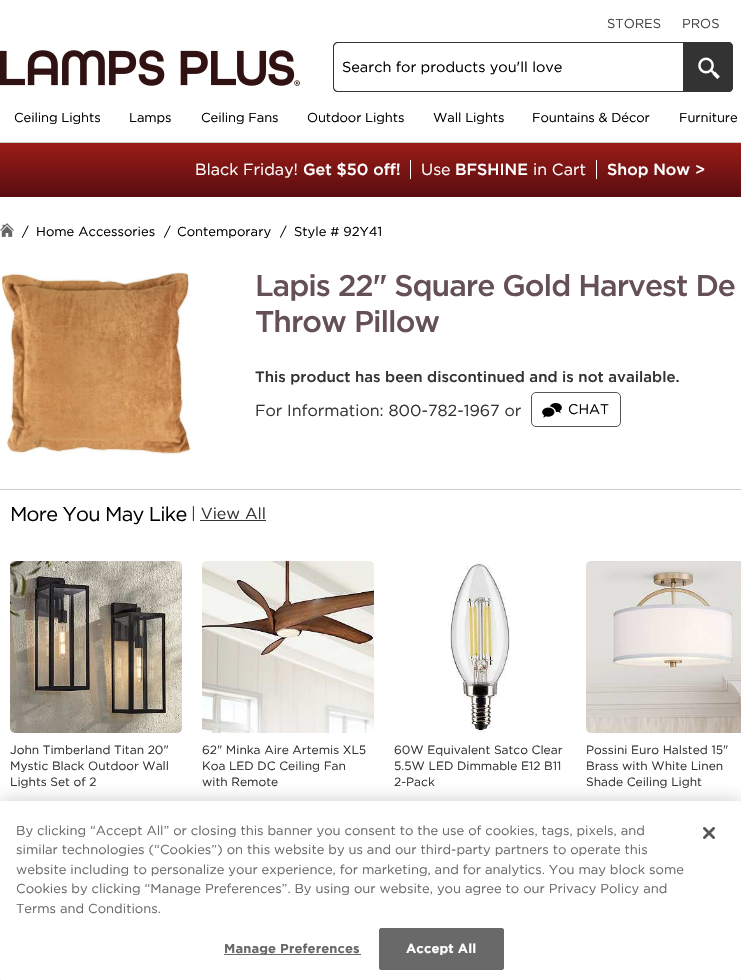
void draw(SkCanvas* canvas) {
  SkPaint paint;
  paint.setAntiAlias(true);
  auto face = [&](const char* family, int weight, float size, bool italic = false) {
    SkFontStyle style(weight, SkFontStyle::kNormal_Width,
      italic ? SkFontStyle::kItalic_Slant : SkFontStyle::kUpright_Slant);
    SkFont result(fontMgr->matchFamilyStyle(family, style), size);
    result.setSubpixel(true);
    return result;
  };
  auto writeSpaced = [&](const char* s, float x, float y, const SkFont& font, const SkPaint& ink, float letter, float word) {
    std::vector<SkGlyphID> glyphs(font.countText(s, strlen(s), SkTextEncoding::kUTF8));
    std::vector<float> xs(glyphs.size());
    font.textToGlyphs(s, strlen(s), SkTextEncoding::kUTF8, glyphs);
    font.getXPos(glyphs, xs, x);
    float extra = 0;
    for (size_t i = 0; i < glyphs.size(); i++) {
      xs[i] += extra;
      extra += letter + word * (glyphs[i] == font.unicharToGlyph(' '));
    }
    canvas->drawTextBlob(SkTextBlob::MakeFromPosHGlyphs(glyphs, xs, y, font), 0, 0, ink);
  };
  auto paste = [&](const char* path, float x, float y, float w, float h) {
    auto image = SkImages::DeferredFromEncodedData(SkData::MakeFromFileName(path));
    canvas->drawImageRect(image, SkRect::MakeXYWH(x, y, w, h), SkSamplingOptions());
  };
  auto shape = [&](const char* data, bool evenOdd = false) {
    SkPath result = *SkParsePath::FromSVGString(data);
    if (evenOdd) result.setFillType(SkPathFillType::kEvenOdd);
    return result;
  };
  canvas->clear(0xffffffff);
  paint.setColor(0xffcccccc);
  canvas->drawRect(SkRect::MakeXYWH(0, 142, 741, 1), paint);
  paste("img/1.png", 0, 50, 300, 36);
  paint.setColor(0xff333333);
  canvas->drawPath(shape("M338 42H683V92H338C335 92 333 90 333 87V47C333 44 335 42 338 42ZM338 43H683V91H338C336 91 334 89 334 87V47C334 45 336 43 338 43Z", true), paint);
  canvas->drawPath(shape("M683 42H728C731 42 733 44 733 47V87C733 90 731 92 728 92H683Z"), paint);
  canvas->drawPath(shape("M683 42H728C731 42 733 44 733 47V87C733 90 731 92 728 92H683ZM683 43H728C730 43 732 45 732 47V87C732 89 730 91 728 91H683Z", true), paint);
  paste("img/2.png", 698, 57, 22, 23);
  {
    const SkColor colors[] = {0xff9b1c16, 0xff580d11};
    const float stops[] = {0, 1};
    const SkPoint ends[] = {{371, 143}, {371, 197}};
    paint.setShader(SkGradientShader::MakeLinear(ends, colors, stops, 2, SkTileMode::kClamp));
    paint.setAlpha(255);
  }
  canvas->drawRect(SkRect::MakeXYWH(0, 143, 741, 54), paint);
  paint.setShader(nullptr);
  paint.setColor(0xffffffff);
  canvas->drawRect(SkRect::MakeXYWH(410, 160, 1, 19), paint);
  canvas->drawRect(SkRect::MakeXYWH(596, 160, 1, 19), paint);
  paste("img/3.png", 0, 223, 14, 14);
  paste("img/4.png", 0, 272, 192, 184);
  paint.setStroke(true);
  paint.setStrokeWidth(1);
  paint.setColor(0xff555555);
  canvas->drawRoundRect(SkRect::MakeXYWH(531.5f, 392.5f, 89, 34), 4.5f, 4.5f, paint);
  paste("img/5.png", 542, 403, 20, 15);
  paint.setStroke(false);
  paint.setColor(0xffcccccc);
  canvas->drawRect(SkRect::MakeXYWH(0, 489, 741, 1), paint);
  paint.setColor(0xff333333);
  canvas->drawRect(SkRect::MakeXYWH(200, 520, 66, 1), paint);
  paste("img/6.png", 10, 561, 172, 172);
  paste("img/7.png", 202, 561, 172, 172);
  paste("img/8.png", 450, 561, 61, 172);
  paste("img/9.png", 586, 561, 155, 172);
  paint.setColor(0x33000000);
  paint.setMaskFilter(SkMaskFilter::MakeBlur(kNormal_SkBlurStyle, 9));
  canvas->drawRoundRect(SkRect::MakeXYWH(0, 801, 741, 179), 2, 2, paint);
  paint.setMaskFilter(nullptr);
  paint.setColor(0xffffffff);
  canvas->drawRoundRect(SkRect::MakeXYWH(0, 801, 741, 179), 2, 2, paint);
  paint.setColor(0xff696969);
  canvas->drawRect(SkRect::MakeXYWH(224, 954, 137, 1), paint);
  canvas->drawRoundRect(SkRect::MakeXYWH(379.5f, 928.5f, 124, 41), 1.5f, 1.5f, paint);
  paint.setStroke(true);
  canvas->drawRoundRect(SkRect::MakeXYWH(379.5f, 928.5f, 124, 41), 1.5f, 1.5f, paint);
  paste("img/10.png", 703, 827, 12, 12);
  auto f0 = face("Gotham", 400, 13);
  paint.setStroke(false);
  paint.setColor(0xff444444);
  canvas->drawString("STORES", 607, 28, f0, paint);
  canvas->drawString("PROS", 682, 28, f0, paint);
  auto f1 = face("Gotham", 400, 14.5f);
  paint.setColor(0xff000000);
  canvas->drawString("Search for products you'll love", 342, 72, f1, paint);
  {
    const struct { const char* s; float x, y; } items[] = {
      {"Ceiling Lights", 14, 122},
      {"Lamps", 129, 122},
      {"Ceiling Fans", 201, 122},
      {"Outdoor Lights", 307, 122},
      {"Wall Lights", 433, 122},
      {"Fountains & Décor", 532, 122},
      {"Furniture", 679, 122},
    };
    for (auto [s, x, y] : items) {
      writeSpaced(s, x, y, f0, paint, -0.1f, 0);
    }
  }
  auto f2 = face("Gotham", 400, 16);
  paint.setColor(0xffffffff);
  canvas->drawString("Black Friday!", 195, 175, f2, paint);
  auto f3 = face("Gotham", 500, 16);
  canvas->drawString("Get $50 off!", 303, 175, f3, paint);
  canvas->drawString("Use", 421, 175, f2, paint);
  canvas->drawString("BFSHINE", 455, 175, f3, paint);
  canvas->drawString("in Cart", 533, 175, f2, paint);
  canvas->drawString("Shop Now >", 607, 175, f3, paint);
  paint.setColor(0xff000000);
  {
    const struct { const char* s; float x, y; } items[] = {
      {"/", 22, 236},
      {"Home Accessories", 36, 236},
      {"/", 164, 236},
      {"Contemporary", 177, 236},
      {"/", 280, 236},
      {"Style # 92Y41", 294, 236},
    };
    for (auto [s, x, y] : items) {
      canvas->drawString(s, x, y, f0, paint);
    }
  }
  auto f4 = face("Gotham", 500, 30);
  paint.setColor(0xff655055);
  writeSpaced("Lapis 22\" Square Gold Harvest De", 255, 296, f4, paint, -1, 0);
  writeSpaced("Throw Pillow", 255, 332, f4, paint, -1, 0);
  auto f5 = face("Gotham", 500, 15);
  paint.setColor(0xff333333);
  canvas->drawString("This product has been discontinued and is not available.", 255, 382, f5, paint);
  canvas->drawString("For Information: 800-782-1967 or", 255, 416, f2, paint);
  auto f6 = face("Gotham", 400, 14);
  paint.setColor(0xff000000);
  canvas->drawString("CHAT", 568, 414, f6, paint);
  auto f7 = face("Gotham", 400, 20);
  writeSpaced("More You May Like", 10, 521, f7, paint, -0.75f, 0);
  paint.setColor(0xff333333);
  canvas->drawString("| View All", 191, 519, f2, paint);
  auto f8 = face("Gotham", 400, 12);
  {
    const struct { const char* s; float x, y; } items[] = {
      {"John Timberland Titan 20\"", 10, 754},
      {"Mystic Black Outdoor Wall", 10, 770},
      {"Lights Set of 2", 10, 786},
      {"62\" Minka Aire Artemis XL5", 202, 754},
      {"Koa LED DC Ceiling Fan", 202, 770},
      {"with Remote", 202, 786},
      {"60W Equivalent Satco Clear", 394, 754},
      {"5.5W LED Dimmable E12 B11", 394, 770},
      {"2-Pack", 394, 786},
      {"Possini Euro Halsted 15\"", 586, 754},
      {"Brass with White Linen", 586, 770},
      {"Shade Ceiling Light", 586, 786},
    };
    for (auto [s, x, y] : items) {
      canvas->drawString(s, x, y, f8, paint);
    }
  }
  paint.setColor(0xff696969);
  {
    const struct { const char* s; float x, y; } items[] = {
      {"By clicking “Accept All” or closing this banner you consent to the use of cookies, tags, pixels, and", 16, 835},
      {"similar technologies (“Cookies”) on this website by us and our third-party partners to operate this", 16, 854},
      {"website including to personalize your experience, for marketing, and for analytics. You may block some", 16, 874},
      {"Cookies by clicking “Manage Preferences”. By using our website, you agree to our Privacy Policy and", 16, 893},
      {"Terms and Conditions.", 16, 913},
    };
    for (auto [s, x, y] : items) {
      canvas->drawString(s, x, y, f0, paint);
    }
  }
  auto f9 = face("Gotham", 700, 13);
  writeSpaced("Manage Preferences", 224, 953, f9, paint, 0.1f, 0);
  paint.setColor(0xffffffff);
  writeSpaced("Accept All", 406, 953, f9, paint, 0.1f, 0);
}
